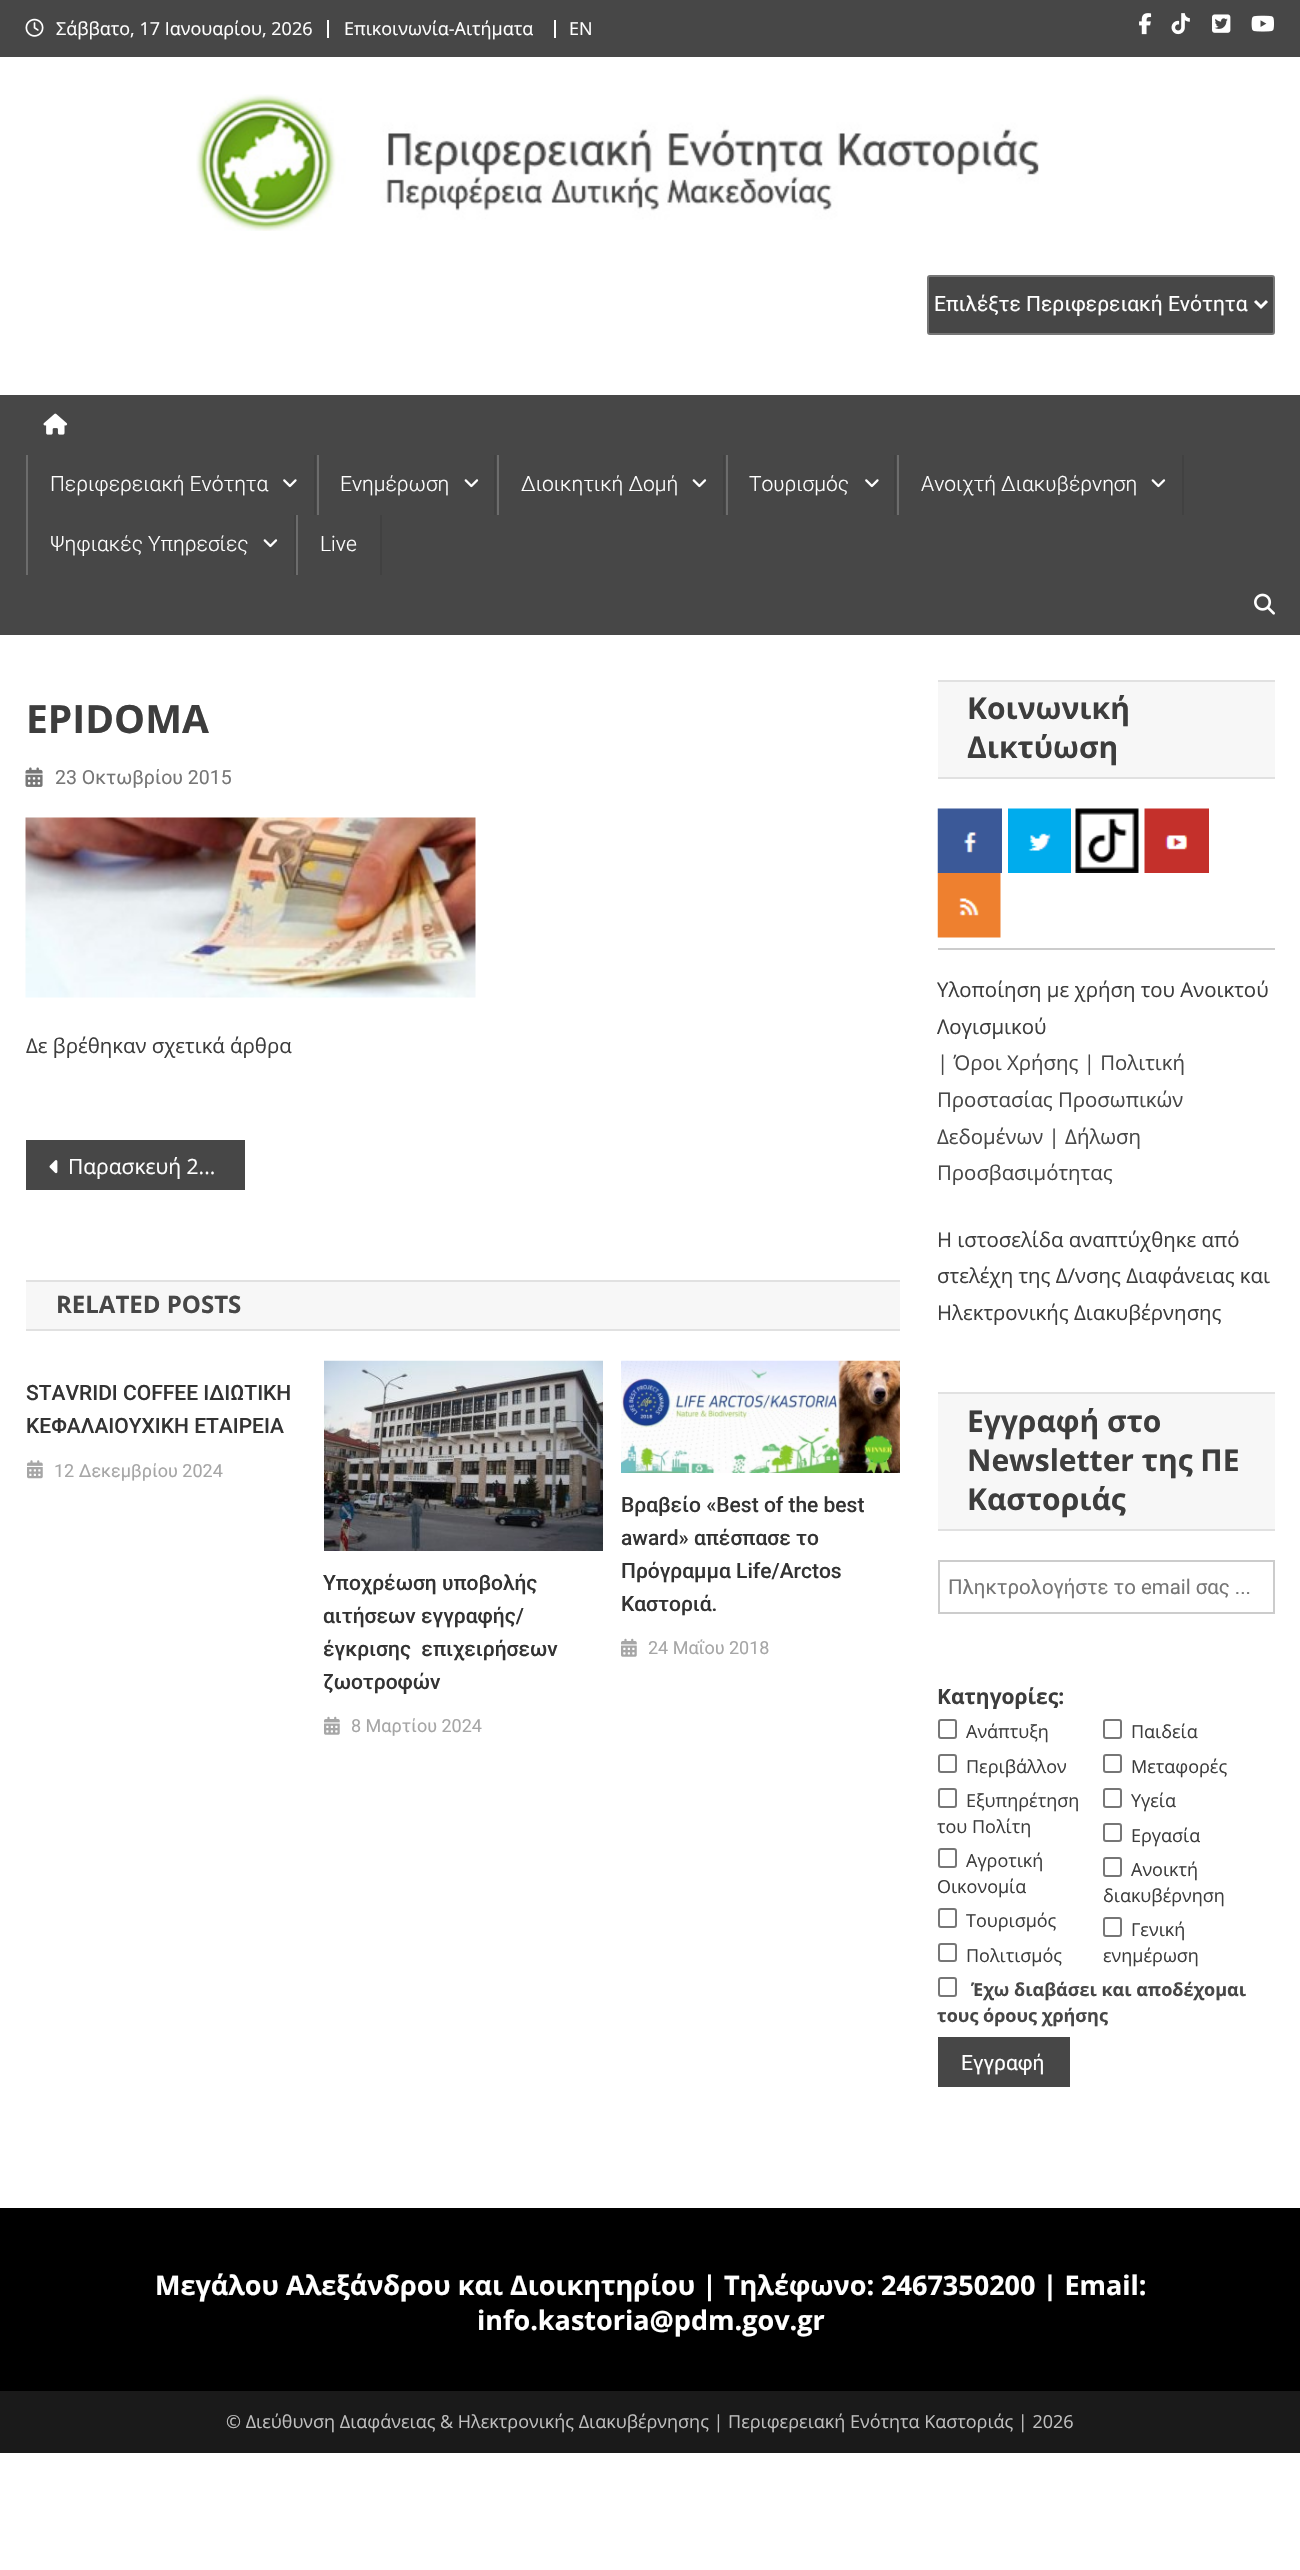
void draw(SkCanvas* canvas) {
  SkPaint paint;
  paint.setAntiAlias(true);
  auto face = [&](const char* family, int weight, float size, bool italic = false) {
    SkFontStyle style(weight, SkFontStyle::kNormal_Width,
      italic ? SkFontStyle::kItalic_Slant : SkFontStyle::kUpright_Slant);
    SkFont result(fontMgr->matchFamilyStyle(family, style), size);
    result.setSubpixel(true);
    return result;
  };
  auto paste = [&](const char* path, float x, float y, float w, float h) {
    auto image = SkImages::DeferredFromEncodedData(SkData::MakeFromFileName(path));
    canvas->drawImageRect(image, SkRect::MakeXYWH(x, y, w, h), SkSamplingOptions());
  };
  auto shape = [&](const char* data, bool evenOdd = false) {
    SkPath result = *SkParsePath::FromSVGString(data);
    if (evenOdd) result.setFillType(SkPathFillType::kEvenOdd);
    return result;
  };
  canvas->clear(0xffffffff);
  paint.setColor(0xff474747);
  canvas->drawRect(SkRect::MakeXYWH(0, 0, 1300, 57), paint);
  paste("img/1.png", 25, 18, 19, 19);
  paint.setColor(0xffffffff);
  canvas->drawRect(SkRect::MakeXYWH(327, 20, 2, 18), paint);
  canvas->drawRect(SkRect::MakeXYWH(554, 20, 2, 18), paint);
  paste("img/2.png", 1139, 13, 13, 22);
  paste("img/3.png", 1171, 13, 19, 22);
  paste("img/4.png", 1212, 14, 19, 19);
  paste("img/5.png", 1251, 15, 23, 17);
  paste("img/6.png", 196, 94, 843, 137);
  paint.setColor(0xff474747);
  canvas->drawRoundRect(SkRect::MakeXYWH(928, 276, 346, 58), 2, 2, paint);
  paint.setStroke(true);
  paint.setStrokeWidth(2);
  paint.setColor(0xff767676);
  canvas->drawRoundRect(SkRect::MakeXYWH(928, 276, 346, 58), 2, 2, paint);
  paint.setStrokeWidth(3);
  paint.setColor(0xffffffff);
  canvas->drawPath(shape("M1255 301L1261 307L1267 301"), paint);
  paint.setStroke(false);
  paint.setColor(0xff474747);
  canvas->drawRect(SkRect::MakeXYWH(0, 395, 1300, 240), paint);
  paste("img/7.png", 43, 413, 25, 22);
  paint.setColor(0xff414141);
  canvas->drawRect(SkRect::MakeXYWH(314, 455, 2, 60), paint);
  paint.setColor(0xff6c6c6c);
  canvas->drawRect(SkRect::MakeXYWH(26, 455, 2, 120), paint);
  paste("img/8.png", 283, 479, 14, 9);
  paint.setColor(0xff414141);
  canvas->drawRect(SkRect::MakeXYWH(494, 455, 2, 60), paint);
  paint.setColor(0xff6c6c6c);
  canvas->drawRect(SkRect::MakeXYWH(317, 455, 2, 60), paint);
  paste("img/9.png", 464, 479, 15, 9);
  paint.setColor(0xff414141);
  canvas->drawRect(SkRect::MakeXYWH(723, 455, 2, 60), paint);
  paint.setColor(0xff6c6c6c);
  canvas->drawRect(SkRect::MakeXYWH(497, 455, 2, 60), paint);
  paste("img/9.png", 692, 479, 15, 9);
  paint.setColor(0xff414141);
  canvas->drawRect(SkRect::MakeXYWH(894, 455, 2, 60), paint);
  paint.setColor(0xff6c6c6c);
  canvas->drawRect(SkRect::MakeXYWH(726, 455, 2, 60), paint);
  paste("img/8.png", 865, 479, 14, 9);
  paint.setColor(0xff414141);
  canvas->drawRect(SkRect::MakeXYWH(1182, 455, 2, 60), paint);
  paint.setColor(0xff6c6c6c);
  canvas->drawRect(SkRect::MakeXYWH(897, 455, 2, 60), paint);
  paste("img/9.png", 1151, 479, 15, 9);
  paint.setColor(0xff414141);
  canvas->drawRect(SkRect::MakeXYWH(294, 515, 2, 60), paint);
  paste("img/9.png", 263, 539, 15, 9);
  canvas->drawRect(SkRect::MakeXYWH(380, 515, 2, 60), paint);
  paint.setColor(0xff6c6c6c);
  canvas->drawRect(SkRect::MakeXYWH(296, 515, 2, 60), paint);
  paste("img/10.png", 1254, 593, 21, 22);
  paste("img/11.png", 25, 767, 18, 20);
  paste("img/12.png", 25, 817, 451, 181);
  paint.setColor(0xff474747);
  canvas->drawRect(SkRect::MakeXYWH(26, 1140, 219, 50), paint);
  paste("img/13.png", 49, 1160, 9, 14);
  {
    const struct { float x, y, w, h; SkColor color; } items[] = {
      {26, 1282, 874, 47, 0xfff7f7f7},
      {26, 1280, 874, 2, 0xffe1e1e1},
      {26, 1329, 874, 2, 0xffe1e1e1},
    };
    for (auto [x, y, w, h, color] : items) {
      paint.setColor(color);
      canvas->drawRect(SkRect::MakeXYWH(x, y, w, h), paint);
    }
  }
  paste("img/14.png", 27, 1460, 16, 19);
  paste("img/15.png", 324, 1360, 279, 191);
  paste("img/16.png", 324, 1716, 16, 19);
  paste("img/17.png", 621, 1360, 279, 113);
  paste("img/16.png", 621, 1638, 16, 19);
  {
    const struct { float x, y, w, h; SkColor color; } items[] = {
      {938, 682, 337, 95, 0xfff7f7f7},
      {938, 680, 337, 2, 0xffe1e1e1},
      {938, 777, 337, 2, 0xffe1e1e1},
    };
    for (auto [x, y, w, h, color] : items) {
      paint.setColor(color);
      canvas->drawRect(SkRect::MakeXYWH(x, y, w, h), paint);
    }
  }
  paste("img/18.png", 937, 808, 65, 65);
  paste("img/19.png", 1008, 808, 63, 65);
  paste("img/20.png", 1075, 808, 64, 65);
  paste("img/21.png", 1144, 808, 65, 65);
  paste("img/22.png", 937, 873, 64, 65);
  {
    const struct { float x, y, w, h; SkColor color; } items[] = {
      {938, 948, 337, 2, 0xffcccccc},
      {938, 1394, 337, 135, 0xfff7f7f7},
      {938, 1392, 337, 2, 0xffe1e1e1},
      {938, 1529, 337, 2, 0xffe1e1e1},
    };
    for (auto [x, y, w, h, color] : items) {
      paint.setColor(color);
      canvas->drawRect(SkRect::MakeXYWH(x, y, w, h), paint);
    }
  }
  paint.setStroke(true);
  paint.setStrokeWidth(2);
  paint.setColor(0xffcccccc);
  canvas->drawRect(SkRect::MakeXYWH(939, 1561, 335, 52), paint);
  paint.setColor(0xff767676);
  canvas->drawRoundRect(SkRect::MakeXYWH(939, 1720, 17, 18), 2, 2, paint);
  canvas->drawRoundRect(SkRect::MakeXYWH(939, 1755, 17, 17), 2, 2, paint);
  canvas->drawRoundRect(SkRect::MakeXYWH(939, 1789, 17, 18), 2, 2, paint);
  canvas->drawRoundRect(SkRect::MakeXYWH(939, 1849, 17, 18), 2, 2, paint);
  canvas->drawRoundRect(SkRect::MakeXYWH(939, 1909, 17, 18), 2, 2, paint);
  canvas->drawRoundRect(SkRect::MakeXYWH(939, 1944, 17, 17), 2, 2, paint);
  canvas->drawRoundRect(SkRect::MakeXYWH(1104, 1720, 17, 18), 2, 2, paint);
  canvas->drawRoundRect(SkRect::MakeXYWH(1104, 1755, 17, 17), 2, 2, paint);
  canvas->drawRoundRect(SkRect::MakeXYWH(1104, 1789, 17, 18), 2, 2, paint);
  canvas->drawRoundRect(SkRect::MakeXYWH(1104, 1824, 17, 17), 2, 2, paint);
  canvas->drawRoundRect(SkRect::MakeXYWH(1104, 1858, 17, 18), 2, 2, paint);
  canvas->drawRoundRect(SkRect::MakeXYWH(1104, 1918, 17, 18), 2, 2, paint);
  canvas->drawRoundRect(SkRect::MakeXYWH(939, 1978, 17, 18), 2, 2, paint);
  paint.setStroke(false);
  {
    const struct { float x, y, w, h; SkColor color; } items[] = {
      {938, 2037, 132, 50, 0xff474747},
      {0, 2208, 1300, 183, 0xff000000},
      {0, 2391, 1300, 62, 0xff1a1a1a},
    };
    for (auto [x, y, w, h, color] : items) {
      paint.setColor(color);
      canvas->drawRect(SkRect::MakeXYWH(x, y, w, h), paint);
    }
  }
  auto f0 = face("Open Sans", 400, 18);
  paint.setColor(0xffffffff);
  {
    const struct { const char* s; float x, y; } items[] = {
      {"Σάββατο, 17 Ιανουαρίου, 2026", 56, 35},
      {"Επικοινωνία-Αιτήματα", 344, 35},
      {"EN", 569, 35},
    };
    for (auto [s, x, y] : items) {
      canvas->drawString(s, x, y, f0, paint);
    }
  }
  auto f1 = face("Roboto", 400, 21);
  canvas->drawString("Επιλέξτε Περιφερειακή Ενότητα", 934, 311, f1, paint);
  auto f2 = face("Roboto", 300, 21);
  {
    const struct { const char* s; float x, y; } items[] = {
      {"Περιφερειακή Ενότητα", 50, 491},
      {"Ενημέρωση", 340, 491},
      {"Διοικητική Δομή", 521, 491},
      {"Τουρισμός", 749, 491},
      {"Ανοιχτή Διακυβέρνηση", 921, 491},
      {"Ψηφιακές Υπηρεσίες", 50, 551},
      {"Live", 320, 551},
    };
    for (auto [s, x, y] : items) {
      canvas->drawString(s, x, y, f2, paint);
    }
  }
  auto f3 = face("Open Sans", 700, 39);
  paint.setColor(0xff3d3d3d);
  canvas->drawString("EPIDOMA", 26, 733, f3, paint);
  auto f4 = face("Roboto", 400, 19.5f);
  paint.setColor(0xff767676);
  canvas->drawString("23 Οκτωβρίου 2015", 55, 784, f4, paint);
  auto f5 = face("Open Sans", 400, 20.4f);
  paint.setColor(0xff3d3d3d);
  canvas->drawString("Δε βρέθηκαν σχετικά άρθρα", 26, 1053, f5, paint);
  auto f6 = face("Open Sans", 400, 21);
  paint.setColor(0xffffffff);
  canvas->drawString("Παρασκευή 2...", 68, 1174, f6, paint);
  auto f7 = face("Open Sans", 700, 24);
  paint.setColor(0xff474747);
  canvas->drawString("RELATED POSTS", 56, 1313, f7, paint);
  auto f8 = face("Roboto", 500, 21);
  paint.setColor(0xff333333);
  canvas->drawString("STAVRIDI COFFEE ΙΔΙΩΤΙΚΗ", 26, 1400, f8, paint);
  canvas->drawString("ΚΕΦΑΛΑΙΟΥΧΙΚΗ ΕΤΑΙΡΕΙΑ", 26, 1433, f8, paint);
  auto f9 = face("Roboto", 400, 18);
  paint.setColor(0xffa6a6a6);
  canvas->drawString("12 Δεκεμβρίου 2024", 54, 1477, f9, paint);
  paint.setColor(0xff333333);
  {
    const struct { const char* s; float x, y; } items[] = {
      {"Υποχρέωση υποβολής", 323, 1590},
      {"αιτήσεων εγγραφής/", 323, 1623},
      {"έγκρισης  επιχειρήσεων", 323, 1656},
      {"ζωοτροφών", 323, 1689},
    };
    for (auto [s, x, y] : items) {
      canvas->drawString(s, x, y, f8, paint);
    }
  }
  paint.setColor(0xffa6a6a6);
  canvas->drawString("8 Μαρτίου 2024", 351, 1732, f9, paint);
  paint.setColor(0xff333333);
  {
    const struct { const char* s; float x, y; } items[] = {
      {"Βραβείο «Best of the best", 621, 1512},
      {"award» απέσπασε το", 621, 1545},
      {"Πρόγραμμα Life/Arctos", 621, 1578},
      {"Καστοριά.", 621, 1611},
    };
    for (auto [s, x, y] : items) {
      canvas->drawString(s, x, y, f8, paint);
    }
  }
  paint.setColor(0xffa6a6a6);
  canvas->drawString("24 Μαΐου 2018", 648, 1654, f9, paint);
  auto f10 = face("Open Sans", 700, 30);
  paint.setColor(0xff3d3d3d);
  canvas->drawString("Κοινωνική", 967, 719, f10, paint);
  canvas->drawString("Δικτύωση", 967, 758, f10, paint);
  canvas->drawString("Υλοποίηση με χρήση του Ανοικτού", 937, 997, f5, paint);
  canvas->drawString("Λογισμικού", 937, 1034, f5, paint);
  paint.setColor(0xff474747);
  {
    const struct { const char* s; float x, y; } items[] = {
      {"| Όροι Χρήσης | Πολιτική", 937, 1070},
      {"Προστασίας Προσωπικών", 937, 1107},
      {"Δεδομένων | Δήλωση", 937, 1144},
      {"Προσβασιμότητας", 937, 1180},
    };
    for (auto [s, x, y] : items) {
      canvas->drawString(s, x, y, f5, paint);
    }
  }
  paint.setColor(0xff3d3d3d);
  {
    const struct { const char* s; float x, y; } items[] = {
      {"Η ιστοσελίδα αναπτύχθηκε από", 937, 1247},
      {"στελέχη της Δ/νσης Διαφάνειας και", 937, 1283},
      {"Ηλεκτρονικής Διακυβέρνησης", 937, 1320},
    };
    for (auto [s, x, y] : items) {
      canvas->drawString(s, x, y, f5, paint);
    }
  }
  {
    const struct { const char* s; float x, y; } items[] = {
      {"Εγγραφή στο", 967, 1432},
      {"Newsletter της ΠΕ", 967, 1471},
      {"Καστοριάς", 967, 1510},
    };
    for (auto [s, x, y] : items) {
      canvas->drawString(s, x, y, f10, paint);
    }
  }
  auto f11 = face("Roboto", 400, 20.4f);
  paint.setColor(0xff767676);
  canvas->drawString("Πληκτρολογήστε το email σας ...", 948, 1594, f11, paint);
  auto f12 = face("Open Sans", 700, 21);
  paint.setColor(0xff3d3d3d);
  canvas->drawString("Κατηγορίες:", 937, 1704, f12, paint);
  {
    const struct { const char* s; float x, y; } items[] = {
      {"Ανάπτυξη", 966, 1738},
      {"Περιβάλλον", 966, 1773},
      {"Εξυπηρέτηση", 966, 1807},
      {"του Πολίτη", 937, 1833},
      {"Αγροτική", 966, 1867},
      {"Οικονομία", 937, 1893},
      {"Τουρισμός", 966, 1927},
      {"Πολιτισμός", 966, 1962},
      {"Παιδεία", 1131, 1738},
      {"Μεταφορές", 1131, 1773},
      {"Υγεία", 1131, 1807},
      {"Εργασία", 1131, 1842},
      {"Ανοικτή", 1131, 1876},
      {"διακυβέρνηση", 1103, 1902},
      {"Γενική", 1131, 1936},
      {"ενημέρωση", 1103, 1962},
    };
    for (auto [s, x, y] : items) {
      canvas->drawString(s, x, y, f0, paint);
    }
  }
  auto f13 = face("Open Sans", 700, 18);
  paint.setColor(0xff474747);
  canvas->drawString("Έχω διαβάσει και αποδέχομαι", 971, 1996, f13, paint);
  canvas->drawString("τους όρους χρήσης", 937, 2022, f13, paint);
  paint.setColor(0xffffffff);
  canvas->drawString("Εγγραφή", 961, 2070, f1, paint);
  auto f14 = face("Open Sans", 700, 27);
  canvas->drawString("Μεγάλου Αλεξάνδρου και Διοικητηρίου | Τηλέφωνο: 2467350200 | Email:", 155, 2295, f14, paint);
  canvas->drawString("info.kastoria@pdm.gov.gr", 477, 2330, f14, paint);
  paint.setColor(0xffbfbfbf);
  canvas->drawString("© Διεύθυνση Διαφάνειας & Ηλεκτρονικής Διακυβέρνησης | Περιφερειακή Ενότητα Καστοριάς | 2026", 226, 2428, f0, paint);
}
